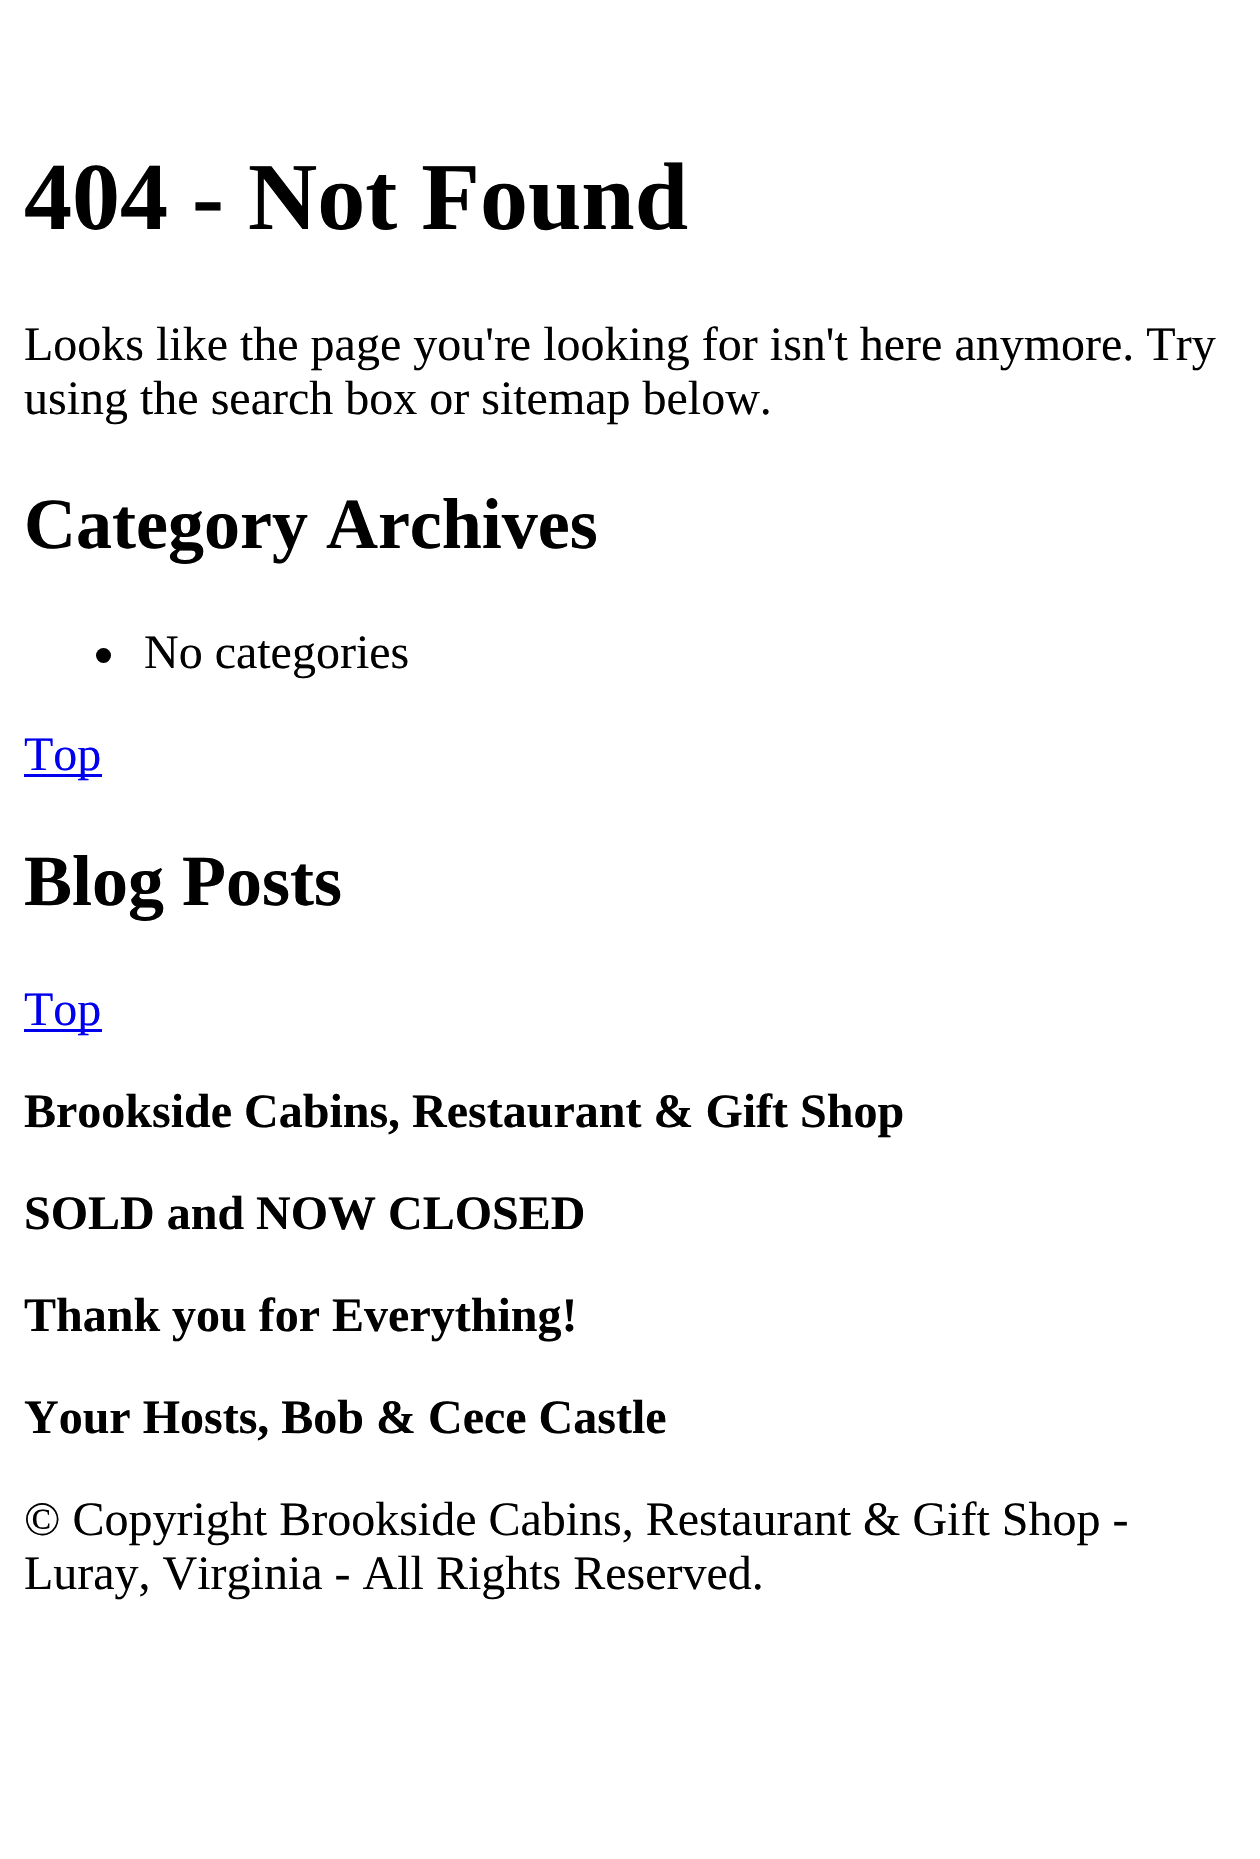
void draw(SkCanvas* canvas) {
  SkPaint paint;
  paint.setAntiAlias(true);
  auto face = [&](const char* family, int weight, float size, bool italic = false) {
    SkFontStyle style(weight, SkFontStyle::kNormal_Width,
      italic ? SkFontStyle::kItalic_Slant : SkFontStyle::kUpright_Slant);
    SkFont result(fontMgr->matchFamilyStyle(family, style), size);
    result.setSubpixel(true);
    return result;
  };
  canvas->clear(0xffffffff);
  paint.setColor(0xff000000);
  canvas->drawCircle(103.5f, 655.5f, 7.5f, paint);
  paint.setColor(0xff0000ee);
  canvas->drawRect(SkRect::MakeXYWH(24, 774, 78, 3), paint);
  canvas->drawRect(SkRect::MakeXYWH(24, 1029, 78, 3), paint);
  auto f0 = face("Liberation Serif", 700, 96);
  paint.setColor(0xff000000);
  canvas->drawString("404 - Not Found", 24, 229, f0, paint);
  auto f1 = face("Liberation Serif", 400, 48);
  canvas->drawString("Looks like the page you're looking for isn't here anymore. Try", 24, 360, f1, paint);
  canvas->drawString("using the search box or sitemap below.", 24, 414, f1, paint);
  auto f2 = face("Liberation Serif", 700, 72);
  canvas->drawString("Category Archives", 24, 548, f2, paint);
  canvas->drawString("No categories", 144, 668, f1, paint);
  paint.setColor(0xff0000ee);
  canvas->drawString("Top", 24, 770, f1, paint);
  paint.setColor(0xff000000);
  canvas->drawString("Blog Posts", 24, 905, f2, paint);
  paint.setColor(0xff0000ee);
  canvas->drawString("Top", 24, 1025, f1, paint);
  auto f3 = face("Liberation Serif", 700, 48);
  paint.setColor(0xff000000);
  {
    const struct { const char* s; float x, y; } items[] = {
      {"Brookside Cabins, Restaurant & Gift Shop", 24, 1127},
      {"SOLD and NOW CLOSED", 24, 1229},
      {"Thank you for Everything!", 24, 1331},
      {"Your Hosts, Bob & Cece Castle", 24, 1433},
    };
    for (auto [s, x, y] : items) {
      canvas->drawString(s, x, y, f3, paint);
    }
  }
  canvas->drawString("© Copyright Brookside Cabins, Restaurant & Gift Shop -", 24, 1535, f1, paint);
  canvas->drawString("Luray, Virginia - All Rights Reserved.", 24, 1589, f1, paint);
}
